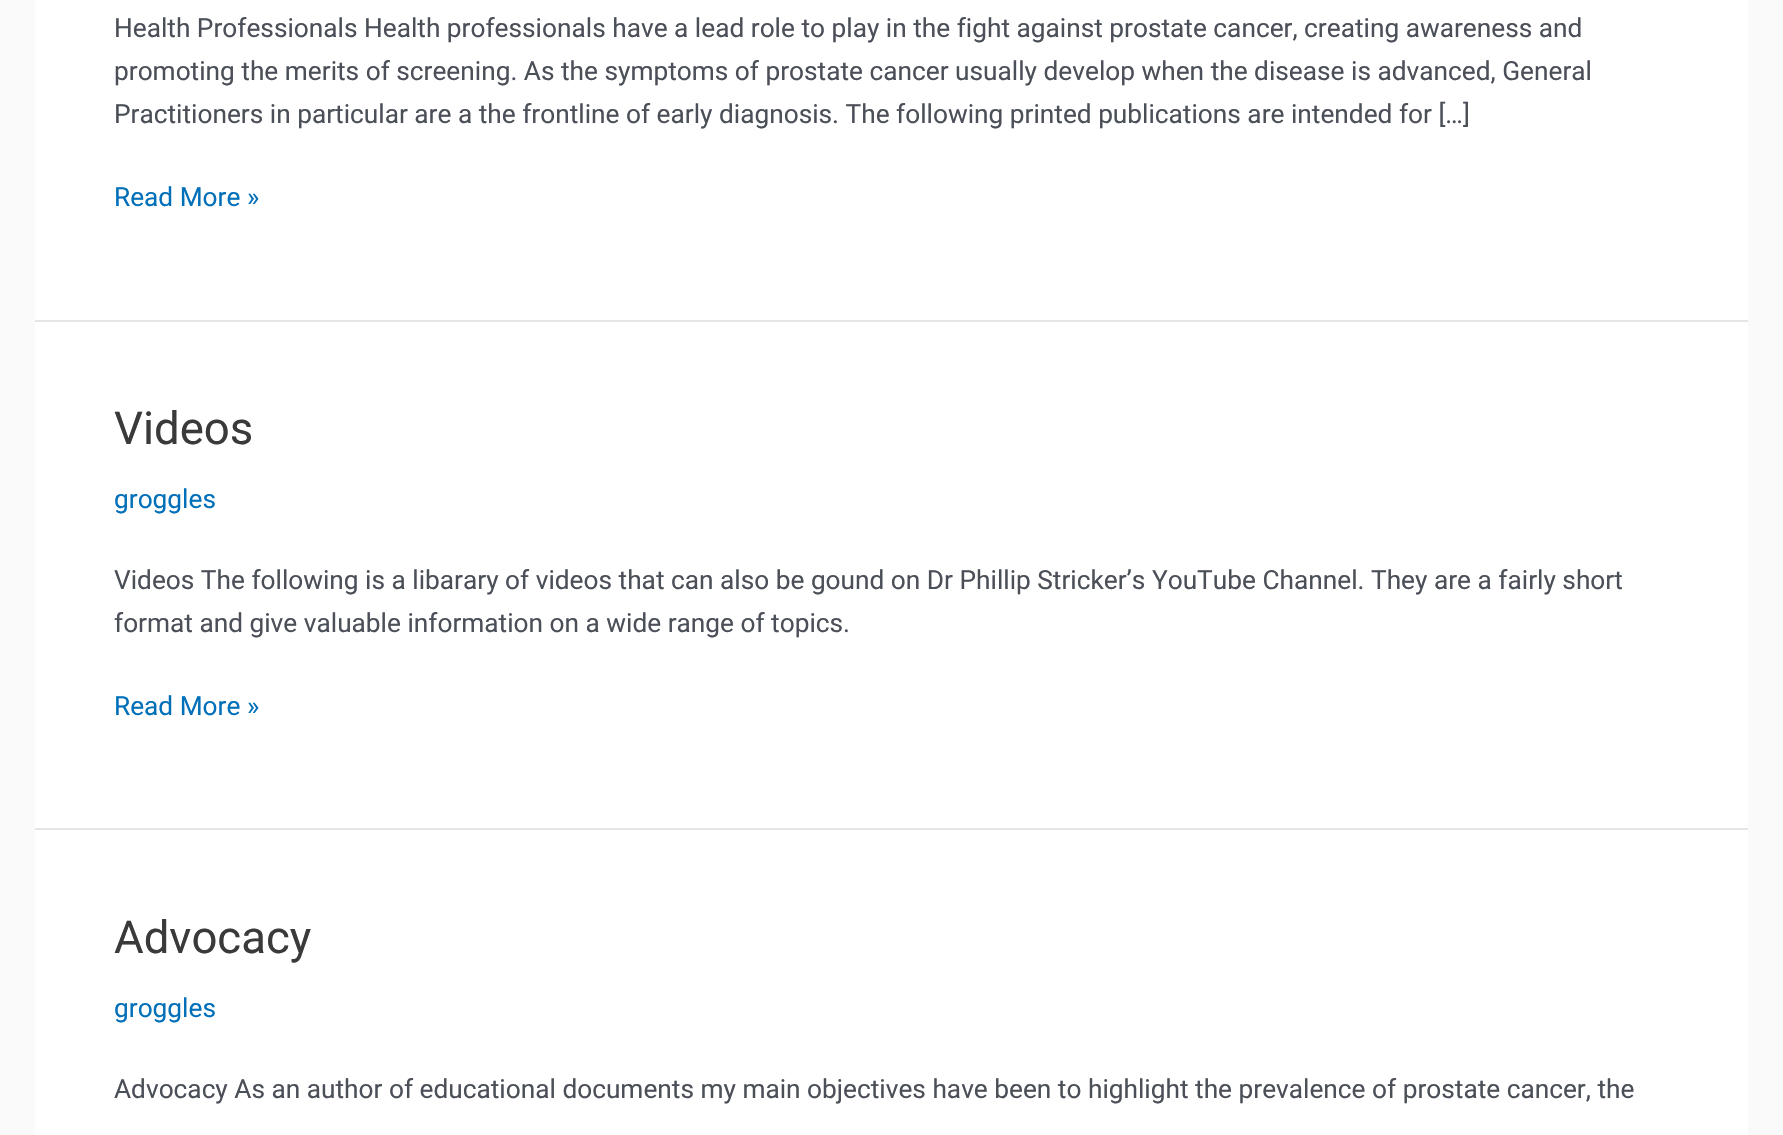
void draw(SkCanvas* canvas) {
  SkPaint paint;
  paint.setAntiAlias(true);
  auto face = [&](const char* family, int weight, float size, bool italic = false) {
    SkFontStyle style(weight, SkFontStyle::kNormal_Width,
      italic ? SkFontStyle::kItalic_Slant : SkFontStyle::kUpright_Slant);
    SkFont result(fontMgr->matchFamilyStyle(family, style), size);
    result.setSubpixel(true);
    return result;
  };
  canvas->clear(0xfffafafa);
  {
    const struct { float x, y, w, h; SkColor color; } items[] = {
      {35, 0, 1713, 320, 0xffffffff},
      {35, 320, 1713, 2, 0xffe5e5e5},
      {35, 322, 1713, 506, 0xffffffff},
      {35, 828, 1713, 2, 0xffe5e5e5},
      {35, 830, 1713, 305, 0xffffffff},
    };
    for (auto [x, y, w, h, color] : items) {
      paint.setColor(color);
      canvas->drawRect(SkRect::MakeXYWH(x, y, w, h), paint);
    }
  }
  auto f0 = face("Roboto", 400, 26.25f);
  paint.setColor(0xff4b4f58);
  {
    const struct { const char* s; float x, y; } items[] = {
      {"Health Professionals Health professionals have a lead role to play in the fight against prostate cancer, creating awareness and", 114, 37},
      {"promoting the merits of screening. As the symptoms of prostate cancer usually develop when the disease is advanced, General", 114, 80},
      {"Practitioners in particular are a the frontline of early diagnosis. The following printed publications are intended for […]", 114, 123},
    };
    for (auto [s, x, y] : items) {
      canvas->drawString(s, x, y, f0, paint);
    }
  }
  paint.setColor(0xff0170b9);
  canvas->drawString("Read More »", 114, 206, f0, paint);
  auto f1 = face("Roboto", 400, 45.5f);
  paint.setColor(0xff3a3a3a);
  canvas->drawString("Videos", 114, 444, f1, paint);
  paint.setColor(0xff0170b9);
  canvas->drawString("groggles", 114, 508, f0, paint);
  paint.setColor(0xff4b4f58);
  canvas->drawString("Videos The following is a libarary of videos that can also be gound on Dr Phillip Stricker’s YouTube Channel. They are a fairly short", 114, 589, f0, paint);
  canvas->drawString("format and give valuable information on a wide range of topics.", 114, 632, f0, paint);
  paint.setColor(0xff0170b9);
  canvas->drawString("Read More »", 114, 715, f0, paint);
  paint.setColor(0xff3a3a3a);
  canvas->drawString("Advocacy", 114, 953, f1, paint);
  paint.setColor(0xff0170b9);
  canvas->drawString("groggles", 114, 1017, f0, paint);
  paint.setColor(0xff4b4f58);
  canvas->drawString("Advocacy As an author of educational documents my main objectives have been to highlight the prevalence of prostate cancer, the", 114, 1098, f0, paint);
}
